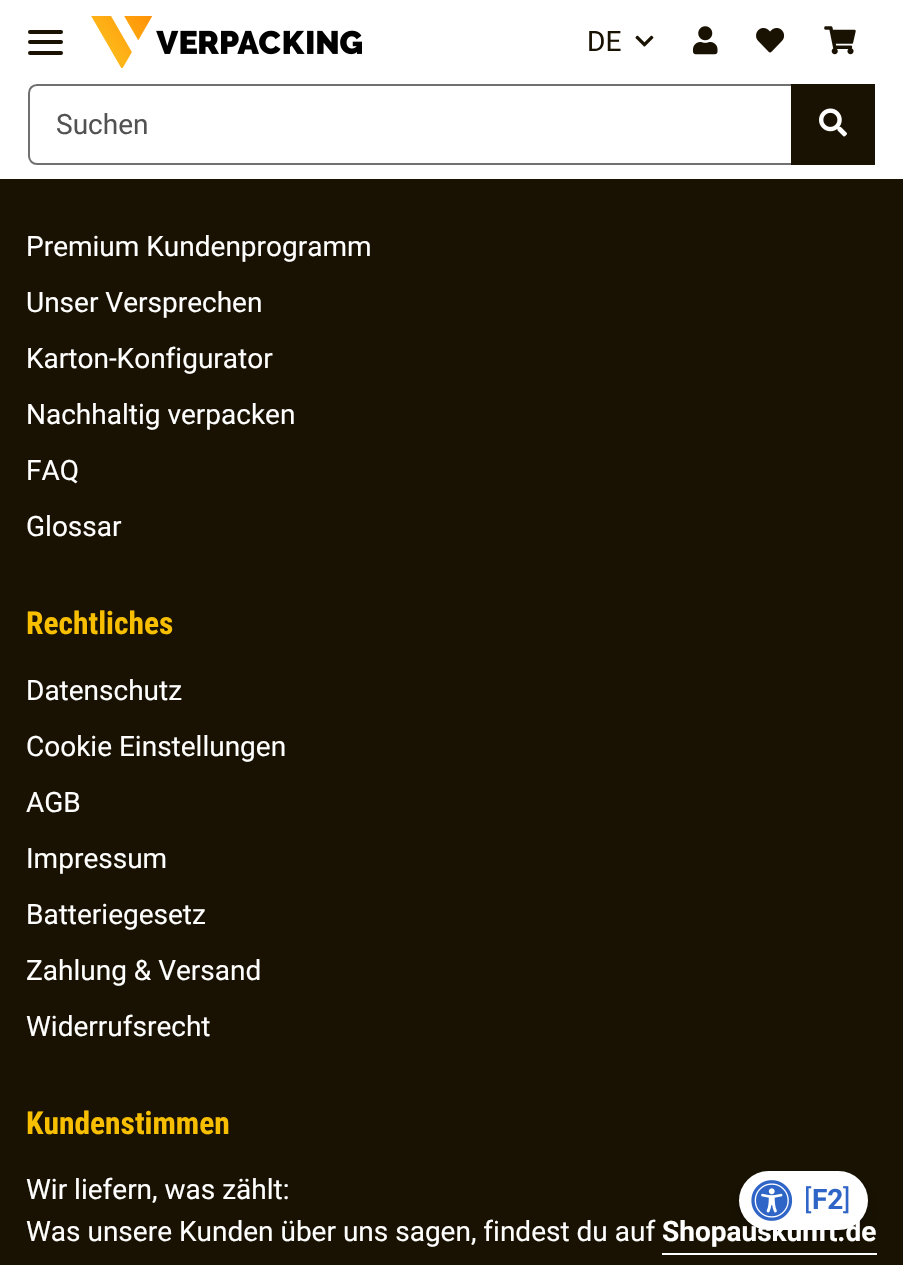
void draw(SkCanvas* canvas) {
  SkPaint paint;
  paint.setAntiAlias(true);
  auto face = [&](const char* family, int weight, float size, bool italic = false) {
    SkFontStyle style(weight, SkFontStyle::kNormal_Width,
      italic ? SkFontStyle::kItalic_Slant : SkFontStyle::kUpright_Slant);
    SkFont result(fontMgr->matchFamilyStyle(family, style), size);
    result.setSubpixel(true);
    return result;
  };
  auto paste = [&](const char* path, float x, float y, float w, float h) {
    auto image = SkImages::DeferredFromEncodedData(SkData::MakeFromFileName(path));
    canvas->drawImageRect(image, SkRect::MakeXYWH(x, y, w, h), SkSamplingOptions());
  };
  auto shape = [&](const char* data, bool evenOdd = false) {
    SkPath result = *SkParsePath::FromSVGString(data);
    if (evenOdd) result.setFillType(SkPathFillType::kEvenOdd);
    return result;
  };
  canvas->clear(0xff191202);
  paint.setColor(0xffffffff);
  canvas->drawRect(SkRect::MakeXYWH(0, 0, 903, 179), paint);
  paint.setColor(0xff191202);
  canvas->drawRoundRect(SkRect::MakeXYWH(28, 40, 35, 4), 2, 2, paint);
  canvas->drawRoundRect(SkRect::MakeXYWH(28, 30, 35, 4), 2, 2, paint);
  canvas->drawRoundRect(SkRect::MakeXYWH(28, 51, 35, 4), 2, 2, paint);
  paste("img/1.png", 91, 16, 271, 52);
  paste("img/2.png", 635, 35, 19, 12);
  paste("img/3.png", 693, 26, 25, 29);
  paste("img/4.png", 756, 28, 29, 25);
  paste("img/5.png", 824, 26, 32, 29);
  paint.setStroke(true);
  paint.setStrokeWidth(2);
  paint.setColor(0xff707070);
  canvas->drawPath(shape("M37 85H792V164H37C32.5 164 29 160.5 29 156V93C29 88.5 32.5 85 37 85Z"), paint);
  paint.setStroke(false);
  paint.setColor(0xff191202);
  canvas->drawRect(SkRect::MakeXYWH(791, 84, 84, 81), paint);
  paste("img/6.png", 819, 108, 28, 29);
  paint.setColor(0xffffffff);
  canvas->drawRect(SkRect::MakeXYWH(662, 1253, 215, 2), paint);
  paint.setColor(0x33000000);
  paint.setMaskFilter(SkMaskFilter::MakeBlur(kNormal_SkBlurStyle, 10.5f));
  canvas->drawRoundRect(SkRect::MakeXYWH(739, 1181, 129, 60), 30, 30, paint);
  paint.setMaskFilter(nullptr);
  paint.setColor(0x26000000);
  paint.setMaskFilter(SkMaskFilter::MakeBlur(kNormal_SkBlurStyle, 3.5f));
  canvas->drawRoundRect(SkRect::MakeXYWH(739, 1174, 129, 60), 30, 30, paint);
  paint.setMaskFilter(nullptr);
  paint.setColor(0xffffffff);
  canvas->drawRoundRect(SkRect::MakeXYWH(739, 1171, 129, 59), 29.5f, 29.5f, paint);
  auto f0 = face("Roboto", 400, 28);
  paint.setColor(0xff191202);
  canvas->drawString("DE", 587, 51, f0, paint);
  paint.setColor(0xff525252);
  canvas->drawString("Suchen", 56, 134, f0, paint);
  paint.setColor(0xffffffff);
  {
    const struct { const char* s; float x, y; } items[] = {
      {"Premium Kundenprogramm", 26, 256},
      {"Unser Versprechen", 26, 312},
      {"Karton-Konfigurator", 26, 368},
      {"Nachhaltig verpacken", 26, 424},
      {"FAQ", 26, 480},
      {"Glossar", 26, 536},
    };
    for (auto [s, x, y] : items) {
      canvas->drawString(s, x, y, f0, paint);
    }
  }
  auto f1 = face("Roboto Condensed", 700, 31.5f);
  paint.setColor(0xfff8bf00);
  canvas->drawString("Rechtliches", 26, 634, f1, paint);
  paint.setColor(0xffffffff);
  {
    const struct { const char* s; float x, y; } items[] = {
      {"Datenschutz", 26, 700},
      {"Cookie Einstellungen", 26, 756},
      {"AGB", 26, 812},
      {"Impressum", 26, 868},
      {"Batteriegesetz", 26, 924},
      {"Zahlung & Versand", 26, 980},
      {"Widerrufsrecht", 26, 1036},
    };
    for (auto [s, x, y] : items) {
      canvas->drawString(s, x, y, f0, paint);
    }
  }
  paint.setColor(0xfff8bf00);
  canvas->drawString("Kundenstimmen", 26, 1134, f1, paint);
  paint.setColor(0xffffffff);
  canvas->drawString("Wir liefern, was zählt:", 26, 1199, f0, paint);
  canvas->drawString("Was unsere Kunden über uns sagen, findest du auf", 26, 1241, f0, paint);
  auto f2 = face("Roboto", 700, 28);
  canvas->drawString("Shopauskunft.de", 662, 1241, f2, paint);
  paste("img/7.png", 751, 1180, 42, 41);
  paint.setColor(0xff2f65c7);
  canvas->drawString("[", 804, 1209, f0, paint);
  canvas->drawString("F2", 812, 1209, f2, paint);
  canvas->drawString("]", 843, 1209, f0, paint);
}
